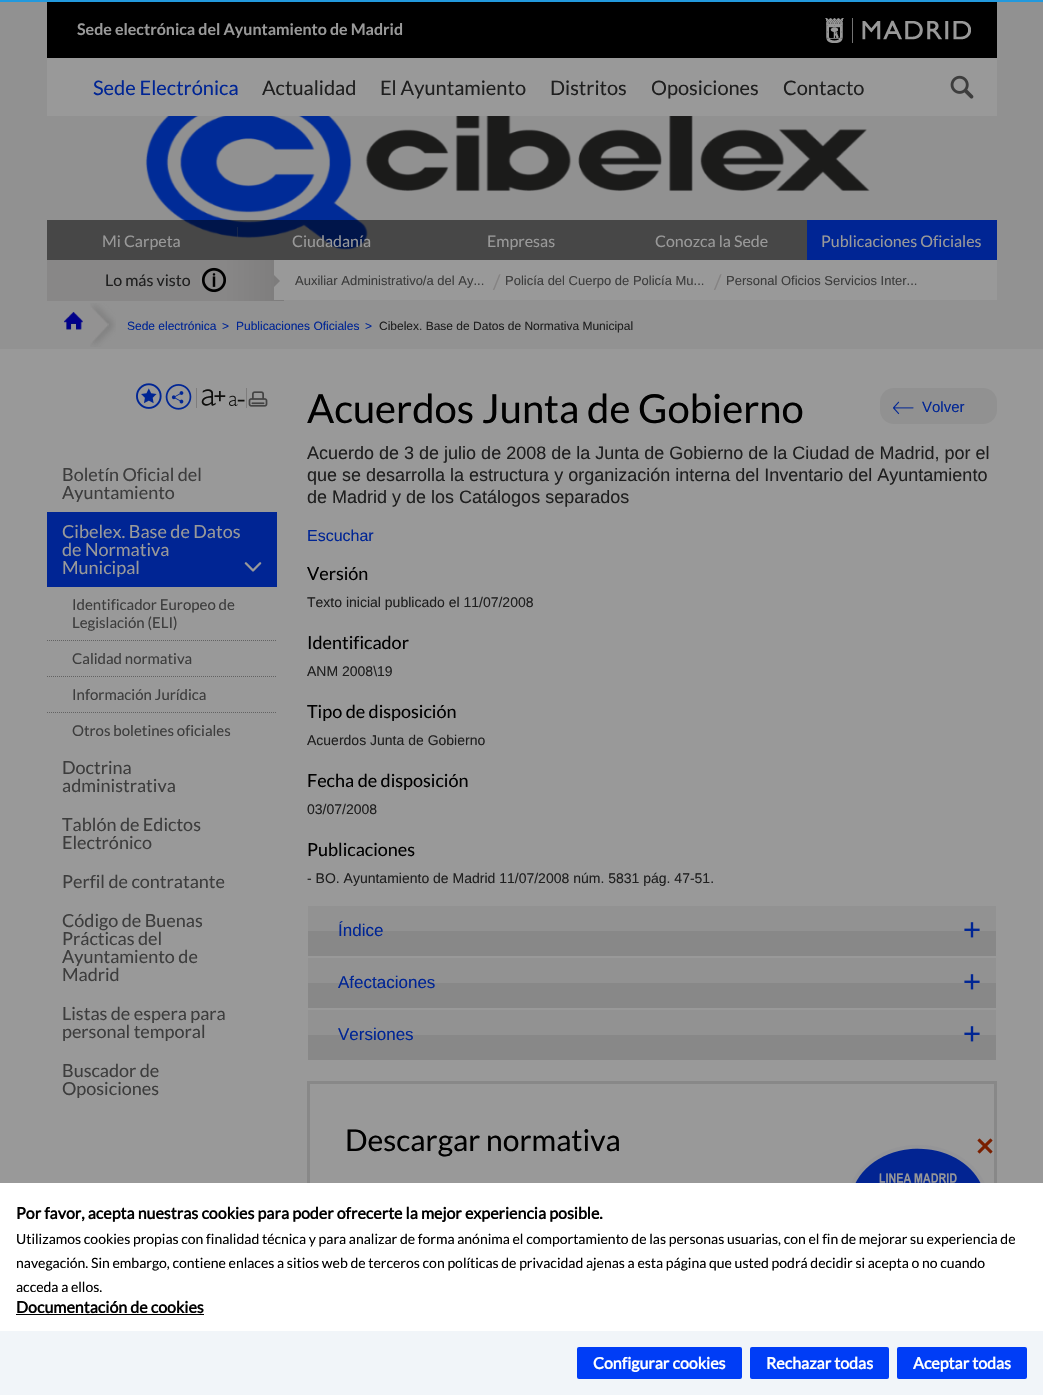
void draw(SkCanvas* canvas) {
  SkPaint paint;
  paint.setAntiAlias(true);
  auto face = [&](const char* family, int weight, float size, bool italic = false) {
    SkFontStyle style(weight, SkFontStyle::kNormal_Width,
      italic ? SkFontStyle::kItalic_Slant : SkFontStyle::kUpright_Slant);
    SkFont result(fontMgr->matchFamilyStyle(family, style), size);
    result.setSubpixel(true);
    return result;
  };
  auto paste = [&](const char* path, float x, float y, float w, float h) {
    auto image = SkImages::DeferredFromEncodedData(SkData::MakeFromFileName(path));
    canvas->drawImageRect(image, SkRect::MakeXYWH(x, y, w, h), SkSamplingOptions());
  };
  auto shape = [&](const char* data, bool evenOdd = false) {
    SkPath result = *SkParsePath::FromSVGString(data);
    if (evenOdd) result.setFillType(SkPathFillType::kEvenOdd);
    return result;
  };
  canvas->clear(0xff999999);
  {
    const struct { float x, y, w, h; SkColor color; } items[] = {
      {0, 0, 1043, 2, 0xff2299dd},
      {0, 2, 1043, 258, 0xff919191},
      {427, 220, 380, 40, 0xff474747},
    };
    for (auto [x, y, w, h, color] : items) {
      paint.setColor(color);
      canvas->drawRect(SkRect::MakeXYWH(x, y, w, h), paint);
    }
  }
  paste("img/1.png", 145, 116, 725, 134);
  paint.setColor(0xff000000);
  canvas->drawRect(SkRect::MakeXYWH(47, 2, 950, 56), paint);
  paste("img/2.png", 825, 18, 146, 25);
  paint.setColor(0xff999999);
  canvas->drawRect(SkRect::MakeXYWH(47, 58, 950, 58), paint);
  paste("img/3.png", 950, 75, 24, 24);
  {
    const struct { float x, y, w, h; SkColor color; } items[] = {
      {47, 220, 190, 40, 0x82000000},
      {237, 227, 1, 11, 0x4d999999},
      {237, 220, 190, 40, 0x82000000},
      {807, 220, 190, 40, 0xff002594},
      {0, 260, 1043, 89, 0xff929292},
    };
    for (auto [x, y, w, h, color] : items) {
      paint.setColor(color);
      canvas->drawRect(SkRect::MakeXYWH(x, y, w, h), paint);
    }
  }
  {
    const SkColor colors[] = {0xff888787, 0xff888787, 0xff7d7c7c};
    const float stops[] = {0, 0.75f, 1};
    const SkPoint ends[] = {{47, 281}, {284, 281}};
    paint.setShader(SkGradientShader::MakeLinear(ends, colors, stops, 3, SkTileMode::kClamp));
    paint.setAlpha(255);
  }
  canvas->drawRect(SkRect::MakeXYWH(47, 260, 237, 41), paint);
  paste("img/4.png", 200, 267, 26, 26);
  paint.setShader(nullptr);
  paint.setColor(0xff999999);
  canvas->drawRect(SkRect::MakeXYWH(274, 260, 723, 40), paint);
  paint.setColor(0xff7d7c7c);
  canvas->drawPath(shape("M274 287V275L280 281Z"), paint);
  paste("img/5.png", 64, 312, 19, 18);
  paste("img/6.png", 90, 303, 26, 44);
  paste("img/7.png", 136, 383, 26, 26);
  paste("img/8.png", 165, 384, 27, 26);
  paint.setColor(0xff7e7d7d);
  canvas->drawRect(SkRect::MakeXYWH(196, 388, 1, 20), paint);
  paste("img/9.png", 201, 389, 25, 17);
  paste("img/10.png", 229, 395, 16, 11);
  canvas->drawRect(SkRect::MakeXYWH(246, 388, 1, 20), paint);
  paste("img/11.png", 248, 391, 20, 16);
  paint.setColor(0xff002594);
  canvas->drawRect(SkRect::MakeXYWH(47, 512, 230, 75), paint);
  paint.setStroke(true);
  paint.setStrokeWidth(1);
  paint.setColor(0xff626262);
  paint.setPathEffect(SkDashPathEffect::Make({{1, 1}}, 0));
  canvas->drawPath(shape("M47 640.5H277"), paint);
  paint.setPathEffect(nullptr);
  paint.setPathEffect(SkDashPathEffect::Make({{1, 1}}, 0));
  canvas->drawPath(shape("M47 676.5H277"), paint);
  paint.setPathEffect(nullptr);
  paint.setPathEffect(SkDashPathEffect::Make({{1, 1}}, 0));
  canvas->drawPath(shape("M47 712.5H277"), paint);
  paint.setPathEffect(nullptr);
  paint.setStroke(false);
  paint.setColor(0xff919191);
  canvas->drawRoundRect(SkRect::MakeXYWH(880, 388, 117, 36), 14, 14, paint);
  paste("img/12.png", 893, 401, 21, 14);
  paint.setColor(0xff929292);
  canvas->drawRect(SkRect::MakeXYWH(308, 906, 688, 25), paint);
  paint.setColor(0xff888888);
  canvas->drawRect(SkRect::MakeXYWH(308, 931, 688, 25), paint);
  paste("img/13.png", 964, 922, 16, 16);
  paint.setColor(0xff929292);
  canvas->drawRect(SkRect::MakeXYWH(308, 958, 688, 25), paint);
  paint.setColor(0xff888888);
  canvas->drawRect(SkRect::MakeXYWH(308, 983, 688, 25), paint);
  paste("img/13.png", 964, 974, 16, 16);
  paint.setColor(0xff929292);
  canvas->drawRect(SkRect::MakeXYWH(308, 1010, 688, 25), paint);
  paint.setColor(0xff888888);
  canvas->drawRect(SkRect::MakeXYWH(308, 1035, 688, 25), paint);
  paste("img/13.png", 964, 1026, 16, 16);
  paint.setStroke(true);
  paint.setStrokeWidth(3);
  canvas->drawRect(SkRect::MakeXYWH(308.5f, 1082.5f, 687, 195), paint);
  paste("img/15.png", 851, 1145, 134, 38);
  paste("img/14.png", 977, 1138, 16, 16);
  paint.setStroke(false);
  {
    const struct { float x, y, w, h; SkColor color; } items[] = {
      {0, 1183, 1043, 148, 0xffffffff},
      {16, 1314, 188, 1, 0xff000000},
      {0, 1331, 1043, 64, 0xfff1f5f9},
    };
    for (auto [x, y, w, h, color] : items) {
      paint.setColor(color);
      canvas->drawRect(SkRect::MakeXYWH(x, y, w, h), paint);
    }
  }
  paint.setColor(0xff003df6);
  canvas->drawRoundRect(SkRect::MakeXYWH(577, 1347, 165, 32), 2, 2, paint);
  canvas->drawRoundRect(SkRect::MakeXYWH(750, 1347, 139, 32), 2, 2, paint);
  canvas->drawRoundRect(SkRect::MakeXYWH(897, 1347, 130, 32), 2, 2, paint);
  auto f0 = face("Lato", 700, 16);
  paint.setColor(0xff999999);
  canvas->drawString("Sede electrónica del Ayuntamiento de Madrid", 77, 35, f0, paint);
  auto f1 = face("Lato", 400, 20);
  paint.setColor(0xff002594);
  canvas->drawString("Sede Electrónica", 93, 95, f1, paint);
  paint.setColor(0xff1f1f1f);
  {
    const struct { const char* s; float x, y; } items[] = {
      {"Actualidad", 262, 95},
      {"El Ayuntamiento", 380, 95},
      {"Distritos", 550, 95},
      {"Oposiciones", 651, 95},
      {"Contacto", 783, 95},
    };
    for (auto [s, x, y] : items) {
      canvas->drawString(s, x, y, f1, paint);
    }
  }
  auto f2 = face("Lato", 400, 16);
  paint.setColor(0xff999999);
  {
    const struct { const char* s; float x, y; } items[] = {
      {"Mi Carpeta", 102, 247},
      {"Ciudadanía", 292, 247},
      {"Empresas", 487, 247},
      {"Conozca la Sede", 655, 247},
      {"Publicaciones Oficiales", 821, 247},
    };
    for (auto [s, x, y] : items) {
      canvas->drawString(s, x, y, f2, paint);
    }
  }
  paint.setColor(0xff1f1f1f);
  canvas->drawString("Lo más visto", 105, 286, f2, paint);
  auto f3 = face("Liberation Sans", 400, 13);
  paint.setColor(0xff3d3d3d);
  canvas->drawString("Auxiliar Administrativo/a del Ay...", 295, 285, f3, paint);
  paint.setColor(0xff858383);
  canvas->drawString("/", 493, 289, f1, paint);
  paint.setColor(0xff3d3d3d);
  canvas->drawString("Policía del Cuerpo de Policía Mu...", 505, 285, f3, paint);
  paint.setColor(0xff858383);
  canvas->drawString("/", 714, 289, f1, paint);
  paint.setColor(0xff3d3d3d);
  canvas->drawString("Personal Oficios Servicios Inter...", 726, 285, f3, paint);
  auto f4 = face("Liberation Sans", 400, 12);
  paint.setColor(0xff002594);
  {
    const struct { const char* s; float x, y; } items[] = {
      {"Sede electrónica", 127, 330},
      {">", 222, 330},
      {"Publicaciones Oficiales", 236, 330},
      {">", 365, 330},
    };
    for (auto [s, x, y] : items) {
      canvas->drawString(s, x, y, f4, paint);
    }
  }
  paint.setColor(0xff1f1f1f);
  canvas->drawString("Cibelex. Base de Datos de Normativa Municipal", 379, 330, f4, paint);
  auto f5 = face("Lato", 400, 18);
  paint.setColor(0xff3d3d3d);
  canvas->drawString("Boletín Oficial del", 62, 481, f5, paint);
  canvas->drawString("Ayuntamiento", 62, 499, f5, paint);
  paint.setColor(0xff999999);
  {
    const struct { const char* s; float x, y; } items[] = {
      {"Cibelex. Base de Datos", 62, 538},
      {"de Normativa", 62, 556},
      {"Municipal", 62, 574},
    };
    for (auto [s, x, y] : items) {
      canvas->drawString(s, x, y, f5, paint);
    }
  }
  auto f6 = face("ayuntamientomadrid", 400, 18);
  canvas->drawString("6", 244, 575, f6, paint);
  auto f7 = face("Lato", 400, 15);
  paint.setColor(0xff3d3d3d);
  {
    const struct { const char* s; float x, y; } items[] = {
      {"Identificador Europeo de", 72, 610},
      {"Legislación (ELI)", 72, 628},
      {"Calidad normativa", 72, 664},
      {"Información Jurídica", 72, 700},
      {"Otros boletines oficiales", 72, 736},
    };
    for (auto [s, x, y] : items) {
      canvas->drawString(s, x, y, f7, paint);
    }
  }
  {
    const struct { const char* s; float x, y; } items[] = {
      {"Doctrina", 62, 774},
      {"administrativa", 62, 792},
      {"Tablón de Edictos", 62, 831},
      {"Electrónico", 62, 849},
      {"Perfil de contratante", 62, 888},
      {"Código de Buenas", 62, 927},
      {"Prácticas del", 62, 945},
      {"Ayuntamiento de", 62, 963},
      {"Madrid", 62, 981},
      {"Listas de espera para", 62, 1020},
      {"personal temporal", 62, 1038},
      {"Buscador de", 62, 1077},
      {"Oposiciones", 62, 1095},
    };
    for (auto [s, x, y] : items) {
      canvas->drawString(s, x, y, f5, paint);
    }
  }
  auto f8 = face("Lato", 400, 40);
  paint.setColor(0xff000000);
  canvas->drawString("Acuerdos Junta de Gobierno", 307, 423, f8, paint);
  auto f9 = face("Liberation Sans", 400, 15);
  paint.setColor(0xff002594);
  canvas->drawString("Volver", 922, 412, f9, paint);
  auto f10 = face("Liberation Sans", 400, 18);
  paint.setColor(0xff1f1f1f);
  {
    const struct { const char* s; float x, y; } items[] = {
      {"Acuerdo de 3 de julio de 2008 de la Junta de Gobierno de la Ciudad de Madrid, por el", 307, 459},
      {"que se desarrolla la estructura y organización interna del Inventario del Ayuntamiento", 307, 481},
      {"de Madrid y de los Catálogos separados", 307, 503},
    };
    for (auto [s, x, y] : items) {
      canvas->drawString(s, x, y, f10, paint);
    }
  }
  auto f11 = face("Liberation Sans", 400, 16);
  paint.setColor(0xff002594);
  canvas->drawString("Escuchar", 307, 541, f11, paint);
  paint.setColor(0xff000000);
  canvas->drawString("Versión", 307, 580, f5, paint);
  auto f12 = face("Liberation Sans", 400, 14);
  paint.setColor(0xff1f1f1f);
  canvas->drawString("Texto inicial publicado el 11/07/2008", 307, 607, f12, paint);
  paint.setColor(0xff000000);
  canvas->drawString("Identificador", 307, 649, f5, paint);
  paint.setColor(0xff1f1f1f);
  canvas->drawString("ANM 2008\\19", 307, 676, f12, paint);
  paint.setColor(0xff000000);
  canvas->drawString("Tipo de disposición", 307, 718, f5, paint);
  paint.setColor(0xff1f1f1f);
  canvas->drawString("Acuerdos Junta de Gobierno", 307, 745, f12, paint);
  paint.setColor(0xff000000);
  canvas->drawString("Fecha de disposición", 307, 787, f5, paint);
  paint.setColor(0xff1f1f1f);
  canvas->drawString("03/07/2008", 307, 814, f12, paint);
  paint.setColor(0xff000000);
  canvas->drawString("Publicaciones", 307, 856, f5, paint);
  paint.setColor(0xff1f1f1f);
  canvas->drawString("- BO. Ayuntamiento de Madrid 11/07/2008 núm. 5831 pág. 47-51.", 307, 883, f12, paint);
  auto f13 = face("Liberation Sans", 400, 17);
  paint.setColor(0xff002594);
  {
    const struct { const char* s; float x, y; } items[] = {
      {"Índice", 338, 936},
      {"Afectaciones", 338, 988},
      {"Versiones", 338, 1040},
    };
    for (auto [s, x, y] : items) {
      canvas->drawString(s, x, y, f13, paint);
    }
  }
  auto f14 = face("Lato", 400, 30);
  paint.setColor(0xff000000);
  canvas->drawString("Descargar normativa", 345, 1151, f14, paint);
  auto f15 = face("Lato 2", 700, 16);
  canvas->drawString("Por favor, acepta nuestras cookies para poder ofrecerte la mejor experiencia posible.", 16, 1219, f15, paint);
  auto f16 = face("Lato", 400, 14);
  {
    const struct { const char* s; float x, y; } items[] = {
      {"Utilizamos cookies propias con finalidad técnica y para analizar de forma anónima el comportamiento de las personas usuarias, con el fin de mejorar su experiencia de", 16, 1244},
      {"navegación. Sin embargo, contiene enlaces a sitios web de terceros con políticas de privacidad ajenas a esta página que usted podrá decidir si acepta o no cuando", 16, 1268},
      {"acceda a ellos.", 16, 1292},
    };
    for (auto [s, x, y] : items) {
      canvas->drawString(s, x, y, f16, paint);
    }
  }
  canvas->drawString("Documentación de cookies", 16, 1313, f15, paint);
  paint.setColor(0xffffffff);
  {
    const struct { const char* s; float x, y; } items[] = {
      {"Configurar cookies", 593, 1369},
      {"Rechazar todas", 766, 1369},
      {"Aceptar todas", 913, 1369},
    };
    for (auto [s, x, y] : items) {
      canvas->drawString(s, x, y, f15, paint);
    }
  }
}
